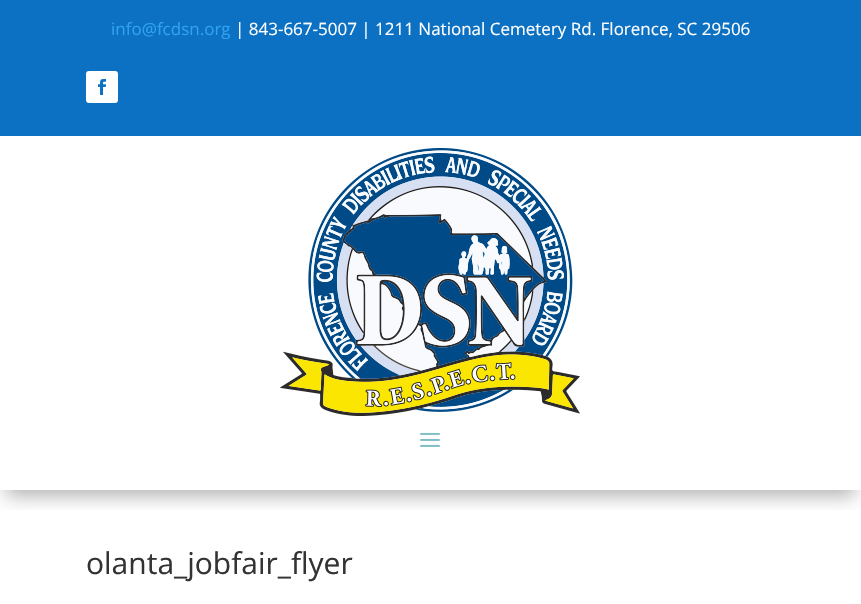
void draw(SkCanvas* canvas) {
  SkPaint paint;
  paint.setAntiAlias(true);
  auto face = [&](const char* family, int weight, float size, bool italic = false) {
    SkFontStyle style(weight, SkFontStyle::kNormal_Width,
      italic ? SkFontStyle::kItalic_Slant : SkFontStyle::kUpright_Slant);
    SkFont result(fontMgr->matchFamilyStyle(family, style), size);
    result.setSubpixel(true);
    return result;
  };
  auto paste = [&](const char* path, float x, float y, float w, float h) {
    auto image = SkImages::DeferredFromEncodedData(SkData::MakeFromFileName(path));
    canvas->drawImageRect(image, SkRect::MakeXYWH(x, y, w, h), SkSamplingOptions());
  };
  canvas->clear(0xffffffff);
  paint.setColor(0xff0c71c3);
  canvas->drawRect(SkRect::MakeXYWH(0, 0, 861, 136), paint);
  paint.setColor(0xffffffff);
  canvas->drawRoundRect(SkRect::MakeXYWH(86, 71, 32, 32), 3, 3, paint);
  paste("img/1.png", 98, 79, 8, 16);
  canvas->save();
  canvas->clipRect(SkRect::MakeXYWH(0, 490, 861, 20));
  paint.setColor(0x4d000000);
  paint.setMaskFilter(SkMaskFilter::MakeBlur(kNormal_SkBlurStyle, 9));
  canvas->drawRect(SkRect::MakeXYWH(6, 154, 849, 342), paint);
  paint.setMaskFilter(nullptr);
  canvas->restore();
  paste("img/2.png", 280, 148, 300, 268);
  paste("img/3.png", 420, 432, 20, 15);
  auto f0 = face("Open Sans", 400, 17);
  paint.setColor(0xff2ea3f2);
  canvas->drawString("info@fcdsn.org", 111, 35, f0, paint);
  paint.setColor(0xffffffff);
  canvas->drawString("| 843-667-5007 | 1211 National Cemetery Rd. Florence, SC 29506", 235, 35, f0, paint);
  auto f1 = face("Open Sans", 400, 30);
  paint.setColor(0xff333333);
  canvas->drawString("olanta_jobfair_flyer", 86, 574, f1, paint);
}
